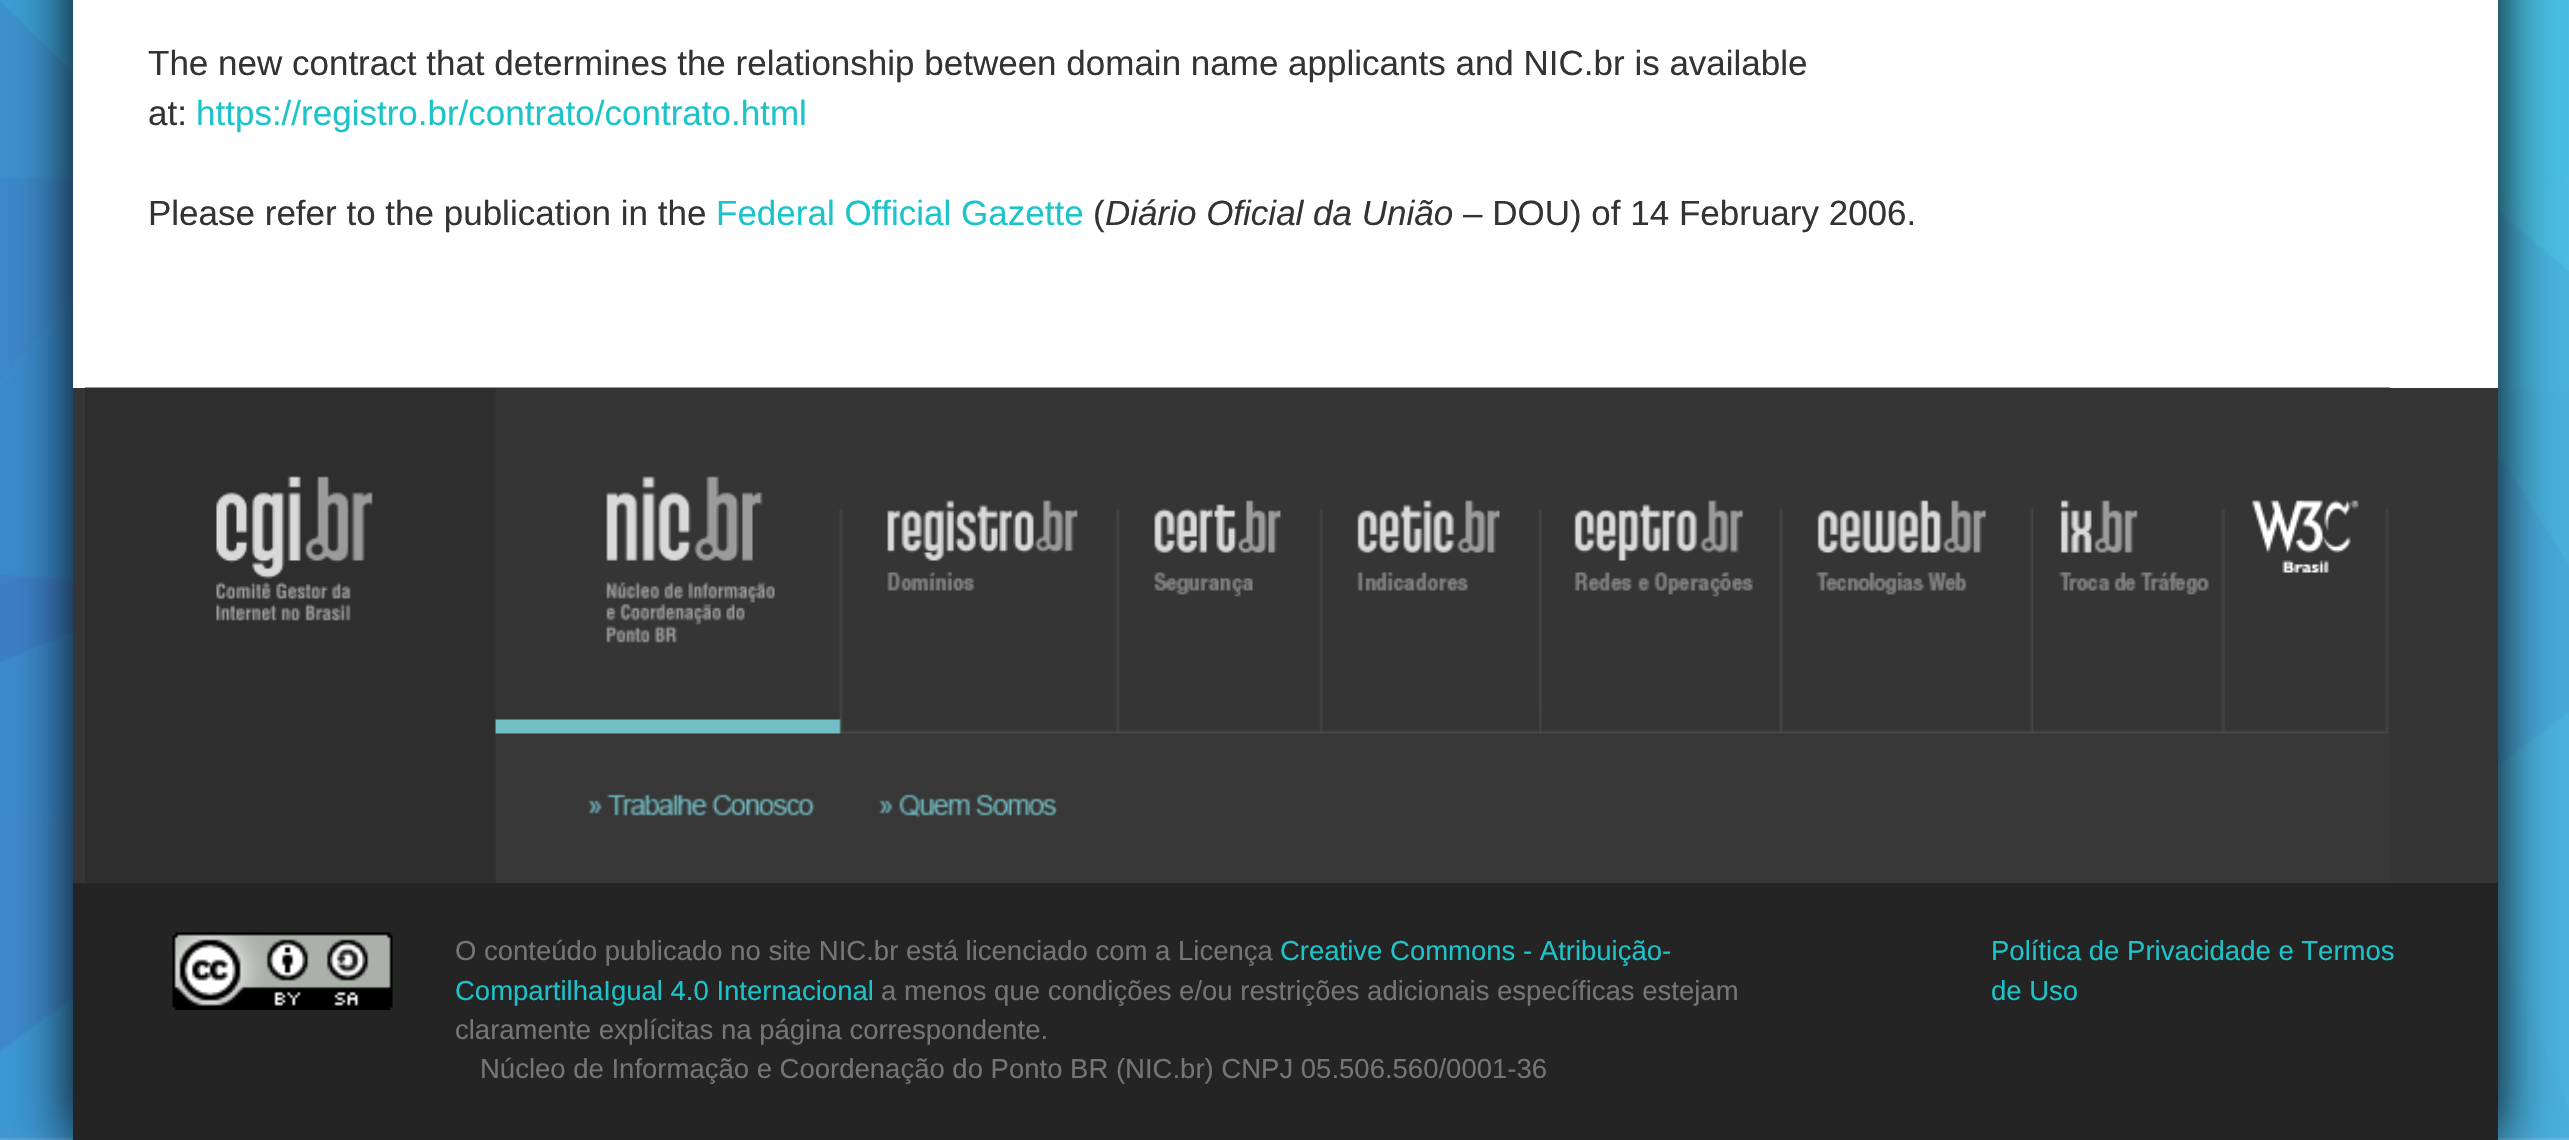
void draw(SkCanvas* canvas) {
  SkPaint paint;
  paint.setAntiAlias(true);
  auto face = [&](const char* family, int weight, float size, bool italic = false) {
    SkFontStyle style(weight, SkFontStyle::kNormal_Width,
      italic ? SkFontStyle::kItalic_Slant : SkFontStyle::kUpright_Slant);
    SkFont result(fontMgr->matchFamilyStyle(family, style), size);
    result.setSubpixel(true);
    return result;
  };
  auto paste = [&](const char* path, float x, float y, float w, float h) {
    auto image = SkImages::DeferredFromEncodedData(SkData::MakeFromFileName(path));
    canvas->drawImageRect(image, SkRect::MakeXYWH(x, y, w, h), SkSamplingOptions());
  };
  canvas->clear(0xffffffff);
  paste("img/1.png", 0, 0, 2569, 1140);
  paint.setColor(0xff000000);
  paint.setMaskFilter(SkMaskFilter::MakeBlur(kNormal_SkBlurStyle, 27.5f));
  canvas->drawRect(SkRect::MakeXYWH(73, -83, 2425, 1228), paint);
  paint.setMaskFilter(nullptr);
  paint.setColor(0xffffffff);
  canvas->drawRect(SkRect::MakeXYWH(73, 0, 2425, 388), paint);
  paint.setColor(0xff353535);
  canvas->drawRect(SkRect::MakeXYWH(73, 388, 2425, 495), paint);
  paste("img/2.png", 85, 387, 2305, 496);
  paint.setColor(0xff242424);
  canvas->drawRect(SkRect::MakeXYWH(73, 883, 2425, 257), paint);
  paste("img/3.png", 172, 932, 221, 78);
  auto f0 = face("Liberation Sans", 400, 35);
  paint.setColor(0xff333333);
  canvas->drawString("The new contract that determines the relationship between domain name applicants and NIC.br is available", 148, 75, f0, paint);
  canvas->drawString("at:", 148, 125, f0, paint);
  paint.setColor(0xff1cc3c9);
  canvas->drawString("https://registro.br/contrato/contrato.html", 196, 125, f0, paint);
  paint.setColor(0xff333333);
  canvas->drawString("Please refer to the publication in the", 148, 225, f0, paint);
  paint.setColor(0xff1cc3c9);
  canvas->drawString("Federal Official Gazette", 716, 225, f0, paint);
  paint.setColor(0xff333333);
  canvas->drawString("(", 1093, 225, f0, paint);
  auto f1 = face("Liberation Sans", 400, 35, true);
  canvas->drawString("Diário Oficial da União", 1105, 225, f1, paint);
  canvas->drawString("– DOU) of 14 February 2006.", 1463, 225, f0, paint);
  auto f2 = face("Liberation Sans", 400, 27.5f);
  paint.setColor(0xff757575);
  canvas->drawString("O conteúdo publicado no site NIC.br está licenciado com a Licença", 455, 960, f2, paint);
  paint.setColor(0xff1cc3c9);
  canvas->drawString("Creative Commons - Atribuição-", 1280, 960, f2, paint);
  canvas->drawString("CompartilhaIgual 4.0 Internacional", 455, 1000, f2, paint);
  paint.setColor(0xff757575);
  {
    const struct { const char* s; float x, y; } items[] = {
      {"a menos que condições e/ou restrições adicionais específicas estejam", 881, 1000},
      {"claramente explícitas na página correspondente.", 455, 1039},
      {"Núcleo de Informação e Coordenação do Ponto BR (NIC.br) CNPJ 05.506.560/0001-36", 480, 1078},
    };
    for (auto [s, x, y] : items) {
      canvas->drawString(s, x, y, f2, paint);
    }
  }
  paint.setColor(0xff1cc3c9);
  canvas->drawString("Política de Privacidade e Termos", 1991, 960, f2, paint);
  canvas->drawString("de Uso", 1991, 1000, f2, paint);
}
